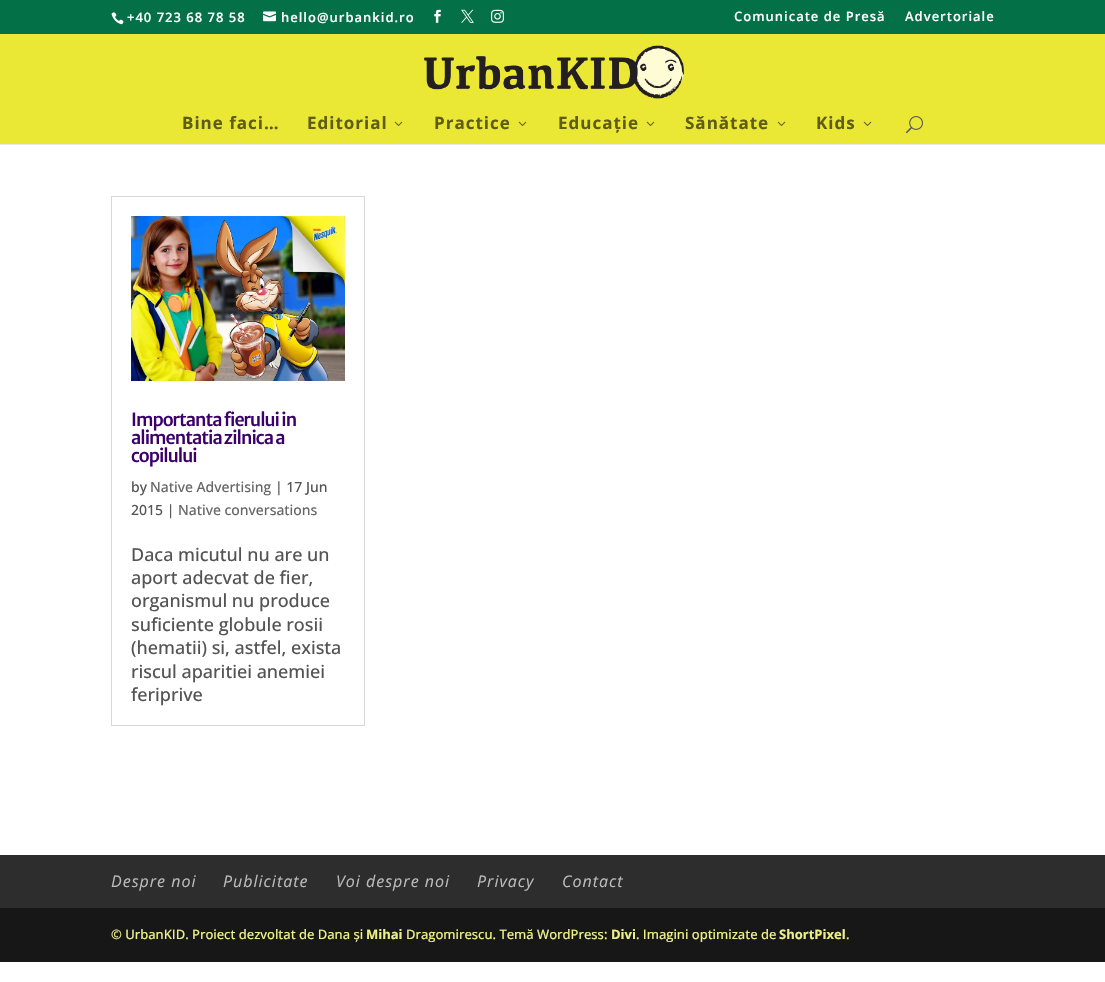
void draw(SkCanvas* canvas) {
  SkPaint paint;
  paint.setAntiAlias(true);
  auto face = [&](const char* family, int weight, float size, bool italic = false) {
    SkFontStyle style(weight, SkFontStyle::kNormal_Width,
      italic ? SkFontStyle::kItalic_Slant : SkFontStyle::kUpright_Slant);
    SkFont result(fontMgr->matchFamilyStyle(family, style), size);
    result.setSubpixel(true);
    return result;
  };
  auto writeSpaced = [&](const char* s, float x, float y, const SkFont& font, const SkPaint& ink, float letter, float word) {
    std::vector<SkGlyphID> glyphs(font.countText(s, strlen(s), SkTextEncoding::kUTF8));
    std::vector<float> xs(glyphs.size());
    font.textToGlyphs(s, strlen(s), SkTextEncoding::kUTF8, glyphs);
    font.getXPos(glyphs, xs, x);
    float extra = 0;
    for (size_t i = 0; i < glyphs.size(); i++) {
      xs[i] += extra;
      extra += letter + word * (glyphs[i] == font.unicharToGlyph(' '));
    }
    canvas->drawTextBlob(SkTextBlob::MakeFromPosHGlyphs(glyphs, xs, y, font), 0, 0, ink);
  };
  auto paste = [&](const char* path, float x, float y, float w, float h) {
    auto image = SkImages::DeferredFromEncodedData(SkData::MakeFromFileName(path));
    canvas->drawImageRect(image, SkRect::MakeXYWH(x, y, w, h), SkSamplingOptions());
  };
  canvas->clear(0xffffffff);
  paint.setColor(0xff047048);
  canvas->drawRect(SkRect::MakeXYWH(0, 0, 1105, 34), paint);
  paste("img/1.png", 111, 12, 13, 13);
  paste("img/2.png", 263, 11, 13, 11);
  paste("img/3.png", 434, 9, 7, 14);
  paste("img/4.png", 461, 9, 13, 14);
  paste("img/5.png", 491, 9, 13, 14);
  paint.setColor(0xffe6e6e6);
  canvas->drawRect(SkRect::MakeXYWH(0, 144, 1105, 1), paint);
  paint.setColor(0xffeae735);
  canvas->drawRect(SkRect::MakeXYWH(0, 34, 1105, 110), paint);
  paste("img/6.png", 424, 45, 260, 54);
  paste("img/7.png", 394, 121, 9, 5);
  paste("img/7.png", 518, 121, 9, 5);
  paste("img/7.png", 646, 121, 9, 5);
  paste("img/7.png", 777, 121, 9, 5);
  paste("img/7.png", 863, 121, 9, 5);
  paste("img/8.png", 906, 116, 17, 18);
  paint.setStroke(true);
  paint.setStrokeWidth(1);
  paint.setColor(0xffd8d8d8);
  canvas->drawRect(SkRect::MakeXYWH(111.5f, 196.5f, 253, 529), paint);
  paste("img/9.png", 131, 216, 214, 165);
  paint.setStroke(false);
  paint.setColor(0xff2d2d2d);
  canvas->drawRect(SkRect::MakeXYWH(0, 855, 1105, 53), paint);
  paint.setColor(0xff171717);
  canvas->drawRect(SkRect::MakeXYWH(0, 908, 1105, 54), paint);
  auto f0 = face("Open Sans", 600, 13);
  paint.setColor(0xffffffff);
  {
    const struct { const char* s; float x, y; } items[] = {
      {"+40 723 68 78 58", 127, 22},
      {"hello@urbankid.ro", 281, 22},
      {"Comunicate de Presă", 734, 21},
      {"Advertoriale", 905, 21},
    };
    for (auto [s, x, y] : items) {
      writeSpaced(s, x, y, f0, paint, 1, 0);
    }
  }
  auto f1 = face("Open Sans", 700, 17);
  paint.setColor(0xff5e5c15);
  {
    const struct { const char* s; float x, y; } items[] = {
      {"Bine faci…", 182, 129},
      {"Editorial", 307, 129},
      {"Practice", 434, 129},
      {"Educație", 558, 129},
      {"Sănătate", 685, 129},
      {"Kids", 816, 129},
    };
    for (auto [s, x, y] : items) {
      writeSpaced(s, x, y, f1, paint, 1, 0);
    }
  }
  auto f2 = face("Merriweather Sans", 500, 18);
  paint.setColor(0xff3c006b);
  {
    const struct { const char* s; float x, y; } items[] = {
      {"Importanta fierului in", 131, 426},
      {"alimentatia zilnica a", 131, 444},
      {"copilului", 131, 462},
    };
    for (auto [s, x, y] : items) {
      writeSpaced(s, x, y, f2, paint, -1, 0);
    }
  }
  auto f3 = face("Open Sans", 500, 14);
  paint.setColor(0xff545454);
  canvas->drawString("by", 131, 492, f3, paint);
  paint.setColor(0xff666666);
  canvas->drawString("Native Advertising", 150, 492, f3, paint);
  paint.setColor(0xff545454);
  canvas->drawString("| 17 Jun", 275, 492, f3, paint);
  canvas->drawString("2015 |", 131, 515, f3, paint);
  paint.setColor(0xff666666);
  canvas->drawString("Native conversations", 178, 515, f3, paint);
  auto f4 = face("Open Sans", 500, 18);
  paint.setColor(0xff545454);
  {
    const struct { const char* s; float x, y; } items[] = {
      {"Daca micutul nu are un", 131, 561},
      {"aport adecvat de fier,", 131, 584},
      {"organismul nu produce", 131, 607},
      {"suficiente globule rosii", 131, 631},
      {"(hematii) si, astfel, exista", 131, 654},
      {"riscul aparitiei anemiei", 131, 678},
      {"feriprive", 131, 701},
    };
    for (auto [s, x, y] : items) {
      canvas->drawString(s, x, y, f4, paint);
    }
  }
  auto f5 = face("Open Sans", 400, 16, true);
  paint.setColor(0xffbbbbbb);
  {
    const struct { const char* s; float x, y; } items[] = {
      {"Despre noi", 111, 887},
      {"Publicitate", 223, 887},
      {"Voi despre noi", 336, 887},
      {"Privacy", 477, 887},
      {"Contact", 562, 887},
    };
    for (auto [s, x, y] : items) {
      writeSpaced(s, x, y, f5, paint, 1, 0);
    }
  }
  auto f6 = face("Open Sans", 500, 13);
  paint.setColor(0xffedef88);
  canvas->drawString("© UrbanKID. Proiect dezvoltat de Dana și", 111, 939, f6, paint);
  auto f7 = face("Open Sans", 700, 13);
  canvas->drawString("Mihai", 366, 939, f7, paint);
  canvas->drawString("Dragomirescu. Temă WordPress:", 406, 939, f6, paint);
  canvas->drawString("Divi", 611, 939, f7, paint);
  canvas->drawString(". Imagini optimizate de", 636, 939, f6, paint);
  canvas->drawString("ShortPixel", 779, 939, f7, paint);
  canvas->drawString(".", 846, 939, f6, paint);
}
